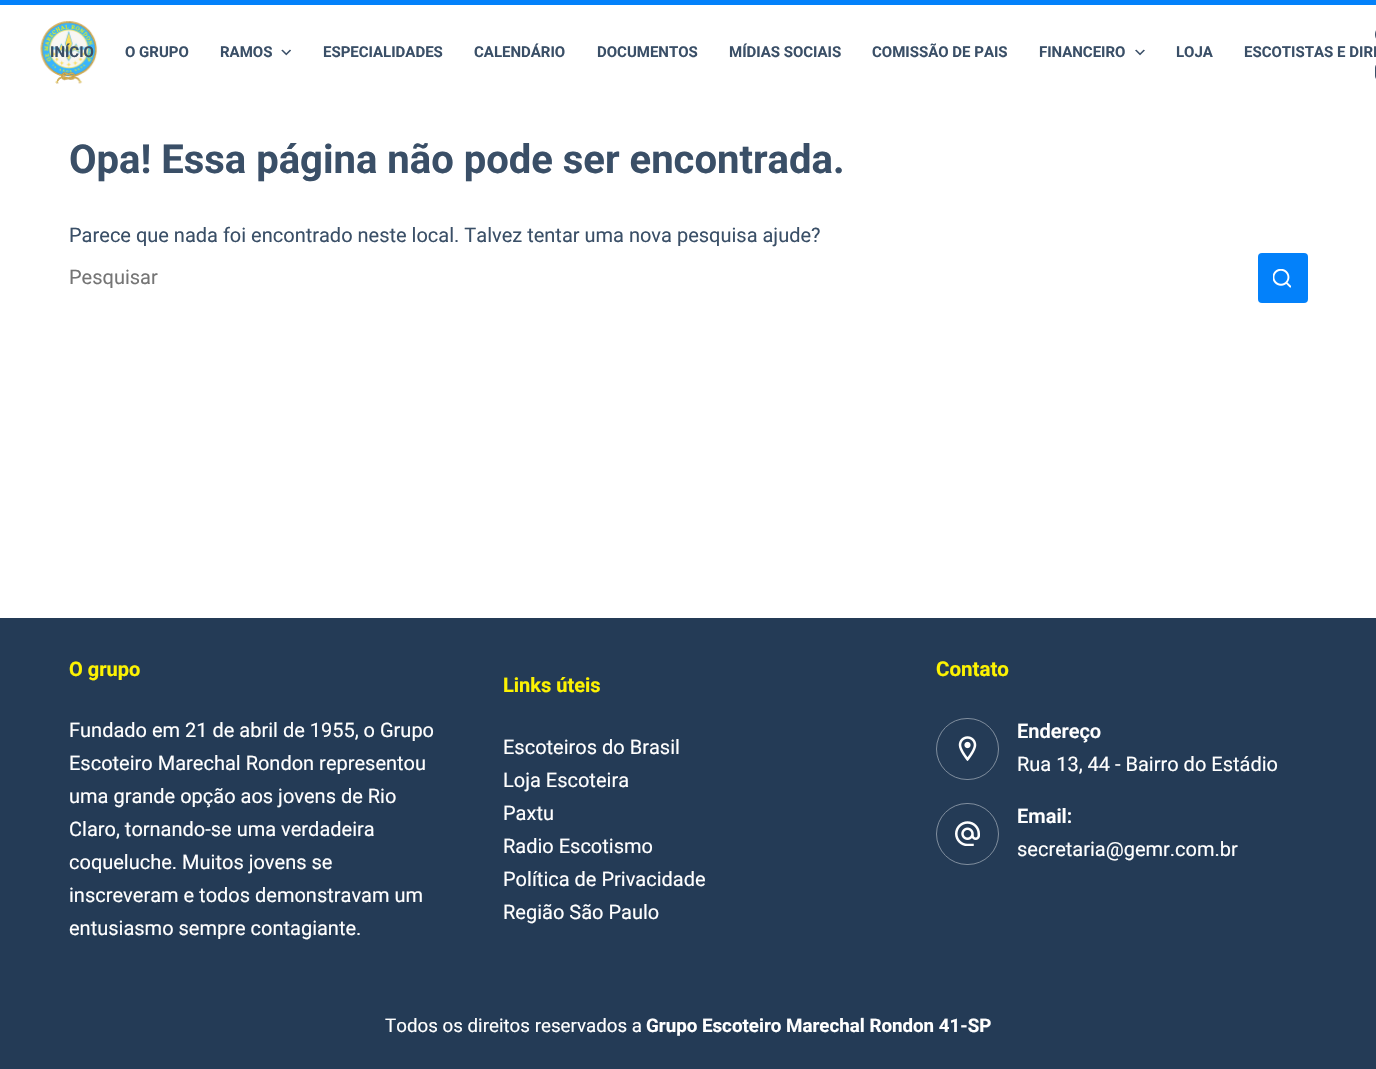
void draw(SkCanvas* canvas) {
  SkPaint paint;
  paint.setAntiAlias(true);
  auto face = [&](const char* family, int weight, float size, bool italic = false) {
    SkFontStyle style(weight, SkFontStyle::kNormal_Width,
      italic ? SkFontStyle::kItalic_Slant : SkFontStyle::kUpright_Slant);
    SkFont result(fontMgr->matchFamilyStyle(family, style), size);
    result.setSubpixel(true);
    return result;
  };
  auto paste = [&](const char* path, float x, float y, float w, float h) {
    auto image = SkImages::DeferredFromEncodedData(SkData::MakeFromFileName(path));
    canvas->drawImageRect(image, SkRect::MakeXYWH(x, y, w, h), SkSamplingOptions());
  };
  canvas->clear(0xffffffff);
  paint.setColor(0xff0381fa);
  canvas->drawRect(SkRect::MakeXYWH(0, 0, 1376, 5), paint);
  paste("img/1.png", 40, 21, 58, 63);
  paste("img/2.png", 1375, 30, 1, 9);
  paste("img/3.png", 1375, 65, 1, 14);
  paste("img/4.png", 281, 49, 10, 7);
  paste("img/5.png", 1135, 49, 10, 7);
  canvas->drawRoundRect(SkRect::MakeXYWH(1258, 253, 50, 50), 4, 4, paint);
  paste("img/6.png", 1273, 269, 18, 19);
  paint.setColor(0xff243b56);
  canvas->drawRect(SkRect::MakeXYWH(0, 618, 1376, 451), paint);
  paint.setStroke(true);
  paint.setStrokeWidth(1);
  paint.setColor(0xff7f8d9d);
  canvas->drawRoundRect(SkRect::MakeXYWH(936.5f, 718.5f, 62, 61), 30.5f, 30.5f, paint);
  paste("img/7.png", 958, 736, 19, 25);
  canvas->drawRoundRect(SkRect::MakeXYWH(936.5f, 803.5f, 62, 61), 30.5f, 30.5f, paint);
  paste("img/8.png", 955, 821, 25, 25);
  auto f0 = face("Roboto", 700, 15);
  paint.setStroke(false);
  paint.setColor(0xff3a4f67);
  {
    const struct { const char* s; float x, y; } items[] = {
      {"INÍCIO", 50, 57},
      {"O GRUPO", 125, 57},
      {"RAMOS", 220, 57},
      {"ESPECIALIDADES", 323, 57},
      {"CALENDÁRIO", 474, 57},
      {"DOCUMENTOS", 597, 57},
      {"MÍDIAS SOCIAIS", 729, 57},
      {"COMISSÃO DE PAIS", 872, 57},
      {"FINANCEIRO", 1039, 57},
      {"LOJA", 1176, 57},
      {"ESCOTISTAS E DIRI", 1244, 57},
    };
    for (auto [s, x, y] : items) {
      canvas->drawString(s, x, y, f0, paint);
    }
  }
  auto f1 = face("Roboto", 700, 40);
  canvas->drawString("Opa! Essa página não pode ser encontrada.", 69, 173, f1, paint);
  auto f2 = face("Roboto", 400, 20);
  canvas->drawString("Parece que nada foi encontrado neste local. Talvez tentar uma nova pesquisa ajude?", 69, 242, f2, paint);
  paint.setColor(0xff757575);
  canvas->drawString("Pesquisar", 69, 284, f2, paint);
  auto f3 = face("Roboto", 700, 20);
  paint.setColor(0xfffcf202);
  canvas->drawString("O grupo", 69, 676, f3, paint);
  paint.setColor(0xffffffff);
  {
    const struct { const char* s; float x, y; } items[] = {
      {"Fundado em 21 de abril de 1955, o Grupo", 69, 737},
      {"Escoteiro Marechal Rondon representou", 69, 770},
      {"uma grande opção aos jovens de Rio", 69, 803},
      {"Claro, tornando-se uma verdadeira", 69, 836},
      {"coqueluche. Muitos jovens se", 69, 869},
      {"inscreveram e todos demonstravam um", 69, 902},
      {"entusiasmo sempre contagiante.", 69, 935},
    };
    for (auto [s, x, y] : items) {
      canvas->drawString(s, x, y, f2, paint);
    }
  }
  paint.setColor(0xfffcf202);
  canvas->drawString("Links úteis", 503, 692, f3, paint);
  paint.setColor(0xffffffff);
  {
    const struct { const char* s; float x, y; } items[] = {
      {"Escoteiros do Brasil", 503, 754},
      {"Loja Escoteira", 503, 787},
      {"Paxtu", 503, 820},
      {"Radio Escotismo", 503, 853},
      {"Política de Privacidade", 503, 886},
      {"Região São Paulo", 503, 919},
    };
    for (auto [s, x, y] : items) {
      canvas->drawString(s, x, y, f2, paint);
    }
  }
  auto f4 = face("Roboto", 700, 20.5f);
  paint.setColor(0xfffcf202);
  canvas->drawString("Contato", 936, 676, f4, paint);
  auto f5 = face("Roboto", 600, 20);
  paint.setColor(0xffffffff);
  canvas->drawString("Endereço", 1017, 738, f5, paint);
  canvas->drawString("Rua 13, 44 - Bairro do Estádio", 1017, 771, f2, paint);
  canvas->drawString("Email:", 1017, 823, f5, paint);
  canvas->drawString("secretaria@gemr.com.br", 1017, 856, f2, paint);
  auto f6 = face("Roboto", 400, 18.75f);
  canvas->drawString("Todos os direitos reservados a", 385, 1032, f6, paint);
  auto f7 = face("Roboto", 700, 18.75f);
  canvas->drawString("Grupo Escoteiro Marechal Rondon 41-SP", 646, 1032, f7, paint);
}
